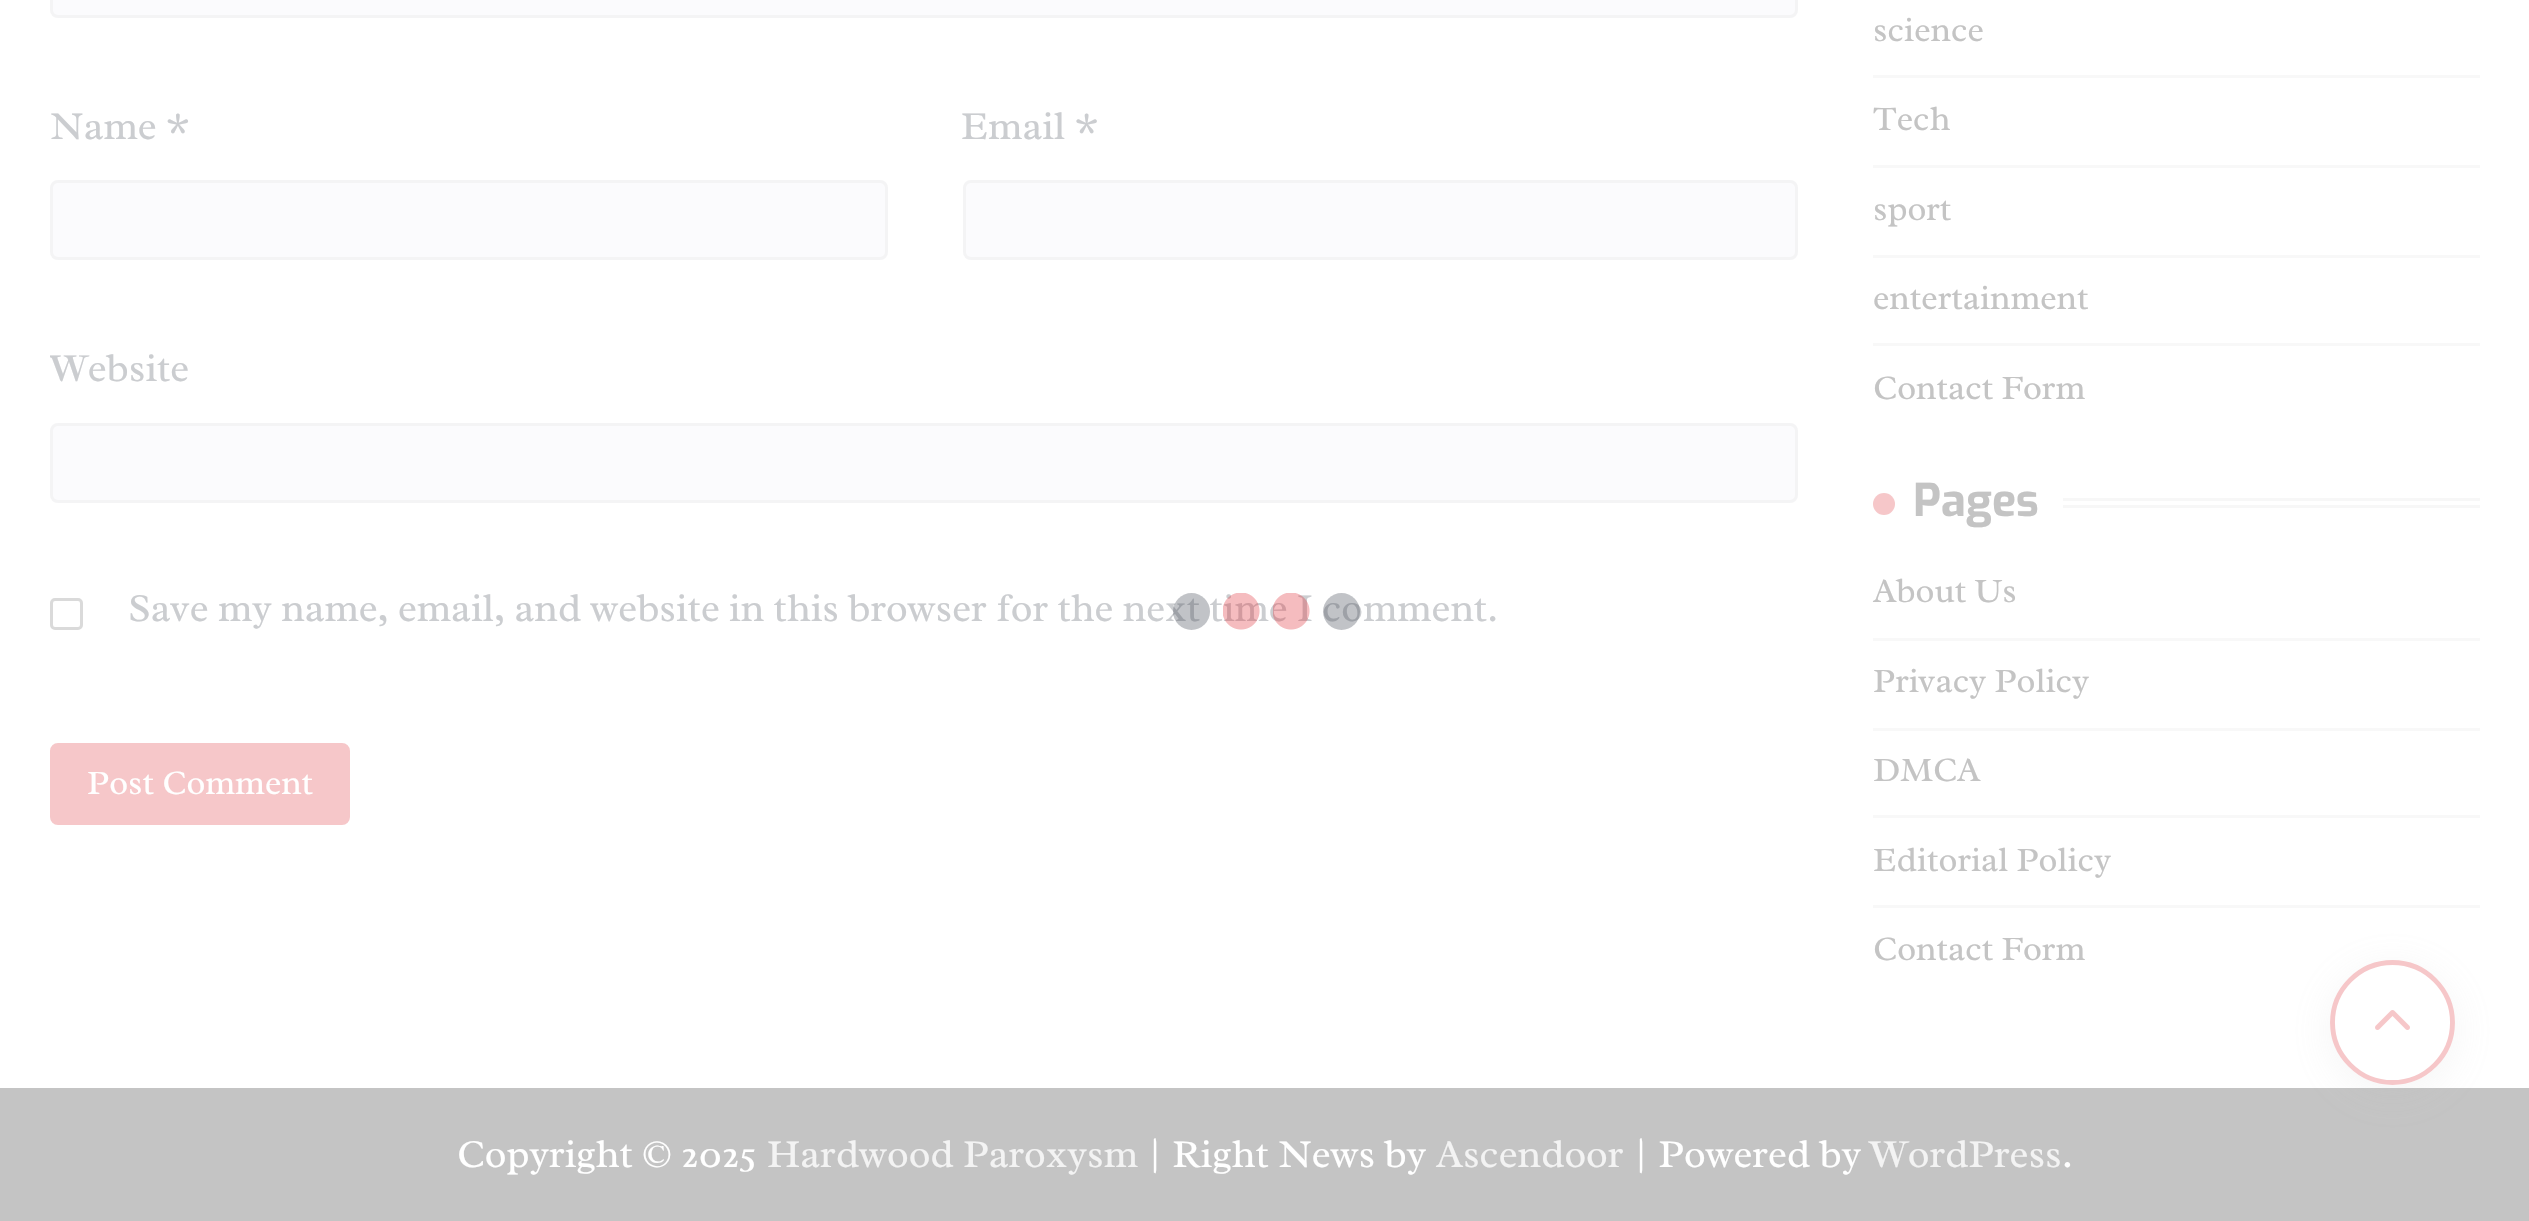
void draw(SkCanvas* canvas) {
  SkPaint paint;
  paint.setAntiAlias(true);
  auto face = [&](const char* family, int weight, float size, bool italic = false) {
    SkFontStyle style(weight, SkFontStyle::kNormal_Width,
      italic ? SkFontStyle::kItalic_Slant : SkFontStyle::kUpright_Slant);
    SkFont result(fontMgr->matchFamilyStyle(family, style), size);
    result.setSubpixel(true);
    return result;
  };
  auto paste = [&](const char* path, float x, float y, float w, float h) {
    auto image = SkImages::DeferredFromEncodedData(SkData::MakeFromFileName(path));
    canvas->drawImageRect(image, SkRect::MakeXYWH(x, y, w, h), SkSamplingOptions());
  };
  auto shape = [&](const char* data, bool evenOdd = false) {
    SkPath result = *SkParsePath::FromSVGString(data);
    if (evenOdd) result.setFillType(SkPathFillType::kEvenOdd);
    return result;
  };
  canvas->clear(0xffffffff);
  paint.setColor(0xfffbfbfd);
  canvas->drawRoundRect(SkRect::MakeXYWH(50, -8, 1748, 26), 8, 8, paint);
  paint.setStroke(true);
  paint.setStrokeWidth(3);
  paint.setColor(0x4de4e4e4);
  canvas->drawRoundRect(SkRect::MakeXYWH(51.5f, -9.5f, 1745, 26), 6.5f, 6.5f, paint);
  paint.setStroke(false);
  paint.setColor(0xfffbfbfd);
  canvas->drawRoundRect(SkRect::MakeXYWH(50, 180, 838, 80), 8, 8, paint);
  paint.setStroke(true);
  paint.setColor(0x4de4e4e4);
  canvas->drawRoundRect(SkRect::MakeXYWH(51.5f, 181.5f, 835, 77), 6.5f, 6.5f, paint);
  paint.setStroke(false);
  paint.setColor(0xfffbfbfd);
  canvas->drawRoundRect(SkRect::MakeXYWH(963, 180, 835, 80), 8, 8, paint);
  paint.setStroke(true);
  paint.setColor(0x4de4e4e4);
  canvas->drawRoundRect(SkRect::MakeXYWH(964.5f, 181.5f, 832, 77), 6.5f, 6.5f, paint);
  paint.setStroke(false);
  paint.setColor(0xfffbfbfd);
  canvas->drawRoundRect(SkRect::MakeXYWH(50, 423, 1748, 80), 8, 8, paint);
  paint.setStroke(true);
  paint.setColor(0x4de4e4e4);
  canvas->drawRoundRect(SkRect::MakeXYWH(51.5f, 424.5f, 1745, 77), 6.5f, 6.5f, paint);
  paint.setColor(0xffdadada);
  canvas->drawRoundRect(SkRect::MakeXYWH(51.5f, 599.5f, 30, 29), 3.5f, 3.5f, paint);
  paint.setStroke(false);
  paint.setColor(0xfff6c7c9);
  canvas->drawRoundRect(SkRect::MakeXYWH(51.5f, 744.5f, 297, 79), 6.5f, 6.5f, paint);
  paint.setStroke(true);
  canvas->drawRoundRect(SkRect::MakeXYWH(51.5f, 744.5f, 297, 79), 6.5f, 6.5f, paint);
  paint.setStroke(false);
  {
    const struct { float x, y, w, h; SkColor color; } items[] = {
      {1873, 75, 607, 3, 0xfff8f8f8},
      {1873, 165, 607, 3, 0xfff8f8f8},
      {1873, 255, 607, 3, 0xfff8f8f8},
      {1873, 343, 607, 3, 0xfff8f8f8},
    };
    for (auto [x, y, w, h, color] : items) {
      paint.setColor(color);
      canvas->drawRect(SkRect::MakeXYWH(x, y, w, h), paint);
    }
  }
  paint.setColor(0xfff6c7c9);
  canvas->drawCircle(1884, 504, 11, paint);
  {
    const struct { float x, y, w, h; SkColor color; } items[] = {
      {2063, 498, 417, 3, 0xfff7f7f7},
      {2063, 505, 417, 3, 0xfff7f7f7},
      {1873, 638, 607, 3, 0xfff8f8f8},
      {1873, 728, 607, 3, 0xfff8f8f8},
      {1873, 815, 607, 3, 0xfff8f8f8},
      {1873, 905, 607, 3, 0xfff8f8f8},
      {0, 1088, 2529, 133, 0xffc4c4c4},
    };
    for (auto [x, y, w, h, color] : items) {
      paint.setColor(color);
      canvas->drawRect(SkRect::MakeXYWH(x, y, w, h), paint);
    }
  }
  paint.setColor(0x26bababa);
  paint.setMaskFilter(SkMaskFilter::MakeBlur(kNormal_SkBlurStyle, 20));
  canvas->drawRoundRect(SkRect::MakeXYWH(2330, 968, 125, 125), 62.5f, 62.5f, paint);
  paint.setMaskFilter(nullptr);
  paint.setColor(0xffffffff);
  canvas->drawCircle(2392.5f, 1022.5f, 62.5f, paint);
  paste("img/1.png", 2375, 1010, 35, 20);
  paint.setStroke(true);
  paint.setStrokeWidth(4.9f);
  paint.setColor(0xfff6c7c9);
  canvas->drawPath(shape("M2392.5 962.5C2425.5 962.5 2452.5 989.5 2452.5 1022.5C2452.5 1055.5 2425.5 1082.5 2392.5 1082.5C2359.5 1082.5 2332.5 1055.5 2332.5 1022.5C2332.5 989.5 2359.5 962.5 2392.5 962.5"), paint);
  auto f0 = face("Radley", 400, 40);
  paint.setStroke(false);
  paint.setColor(0xffcbcdd0);
  canvas->drawString("Name *", 50, 139, f0, paint);
  canvas->drawString("Email *", 961, 139, f0, paint);
  canvas->save();
  canvas->clipRect(SkRect::MakeXYWH(50, 0, 1748, 1038));
  canvas->drawString("Website", 50, 381, f0, paint);
  canvas->restore();
  canvas->drawString("Save my name, email, and website in this browser for the next time I comment.", 128, 621, f0, paint);
  auto f1 = face("Radley", 400, 34.75f);
  paint.setColor(0xffffffff);
  canvas->drawString("Post Comment", 87, 794, f1, paint);
  paint.setColor(0xffc4c4c4);
  {
    const struct { const char* s; float x, y; } items[] = {
      {"science", 1873, 41},
      {"Tech", 1873, 130},
      {"sport", 1873, 220},
      {"entertainment", 1873, 309},
      {"Contact Form", 1873, 399},
    };
    for (auto [s, x, y] : items) {
      canvas->drawString(s, x, y, f1, paint);
    }
  }
  auto f2 = face("Exo", 700, 45);
  canvas->drawString("Pages", 1913, 516, f2, paint);
  {
    const struct { const char* s; float x, y; } items[] = {
      {"About Us", 1873, 602},
      {"Privacy Policy", 1873, 692},
      {"DMCA", 1873, 781},
      {"Editorial Policy", 1873, 871},
      {"Contact Form", 1873, 960},
    };
    for (auto [s, x, y] : items) {
      canvas->drawString(s, x, y, f1, paint);
    }
  }
  {
    const SkColor colors[] = {0x52df2e38, 0x00df2e38};
    const float stops[] = {0.95f, 1};
    paint.setShader(SkGradientShader::MakeRadial({1291, 611}, 19, colors, stops, 2, SkTileMode::kClamp));
    paint.setAlpha(255);
  }
  canvas->drawRect(SkRect::MakeXYWH(1273, 593, 37, 37), paint);
  {
    const SkColor colors[] = {0x52df2e38, 0x00df2e38};
    const float stops[] = {0.95f, 1};
    paint.setShader(SkGradientShader::MakeRadial({1241, 611}, 19, colors, stops, 2, SkTileMode::kClamp));
    paint.setAlpha(255);
  }
  canvas->drawRect(SkRect::MakeXYWH(1223, 593, 37, 37), paint);
  paint.setShader(nullptr);
  paint.setColor(0x523d4452);
  canvas->drawCircle(1191.5f, 611.5f, 18.5f, paint);
  canvas->drawCircle(1341.5f, 611.5f, 18.5f, paint);
  paint.setColor(0xffffffff);
  canvas->drawString("Copyright © 2025", 457, 1167, f0, paint);
  paint.setColor(0xfff3f3f3);
  canvas->drawString("Hardwood Paroxysm", 767, 1167, f0, paint);
  paint.setColor(0xffffffff);
  canvas->drawString("| Right News by", 1147, 1167, f0, paint);
  paint.setColor(0xfff3f3f3);
  canvas->drawString("Ascendoor", 1436, 1167, f0, paint);
  paint.setColor(0xffffffff);
  canvas->drawString("| Powered by", 1633, 1167, f0, paint);
  paint.setColor(0xfff3f3f3);
  canvas->drawString("WordPress", 1870, 1167, f0, paint);
  paint.setColor(0xffffffff);
  canvas->drawString(".", 2062, 1167, f0, paint);
}
